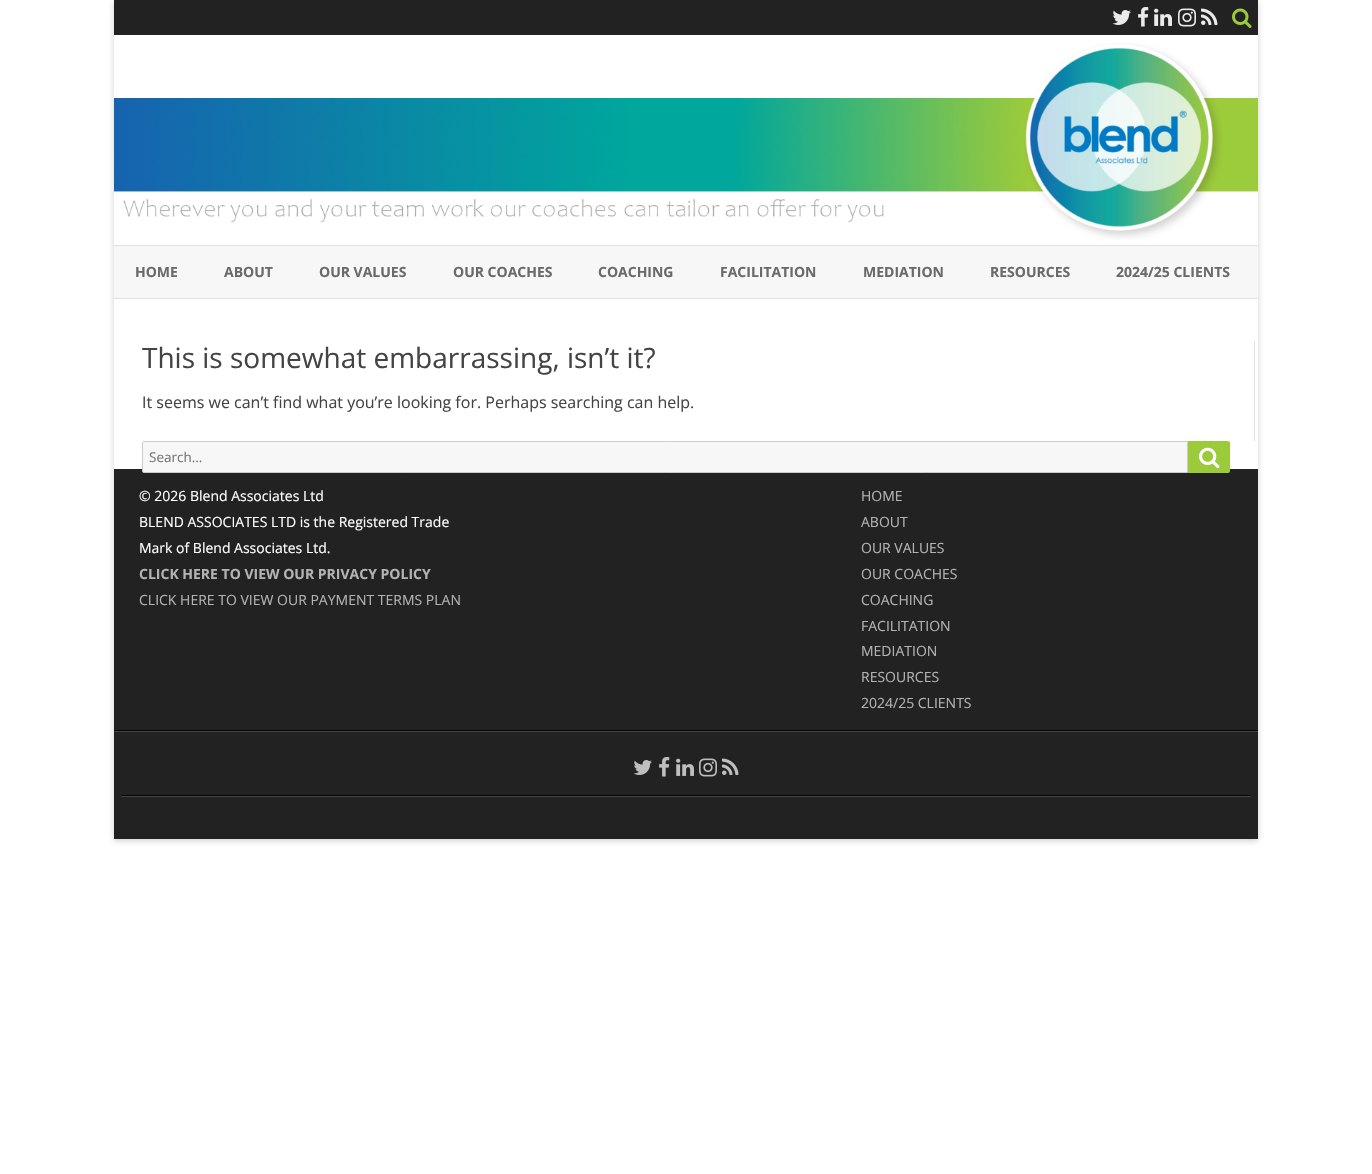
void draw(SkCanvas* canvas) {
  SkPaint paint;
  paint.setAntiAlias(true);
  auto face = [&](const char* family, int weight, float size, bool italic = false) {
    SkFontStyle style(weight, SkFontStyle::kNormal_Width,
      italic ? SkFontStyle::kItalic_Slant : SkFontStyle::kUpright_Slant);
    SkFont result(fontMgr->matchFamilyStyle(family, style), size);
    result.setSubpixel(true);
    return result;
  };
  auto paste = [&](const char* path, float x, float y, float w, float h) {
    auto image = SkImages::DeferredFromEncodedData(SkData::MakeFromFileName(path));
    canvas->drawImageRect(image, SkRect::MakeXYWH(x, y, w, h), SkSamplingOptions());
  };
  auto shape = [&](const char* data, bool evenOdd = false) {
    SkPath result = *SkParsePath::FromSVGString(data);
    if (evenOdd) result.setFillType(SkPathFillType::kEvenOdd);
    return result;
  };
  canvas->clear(0xffffffff);
  canvas->save();
  canvas->clipPath(shape("M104 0H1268V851H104ZM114 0H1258V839H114Z", true), true);
  paint.setColor(0x4d646464);
  paint.setMaskFilter(SkMaskFilter::MakeBlur(kNormal_SkBlurStyle, 3));
  canvas->drawRect(SkRect::MakeXYWH(114, 2, 1144, 839), paint);
  paint.setMaskFilter(nullptr);
  canvas->restore();
  paint.setColor(0xff222222);
  canvas->drawRect(SkRect::MakeXYWH(114, 0, 1144, 35), paint);
  paste("img/1.png", 1112, 10, 19, 15);
  paste("img/2.png", 1138, 7, 11, 20);
  paste("img/3.png", 1154, 8, 18, 18);
  paste("img/4.png", 1178, 8, 18, 19);
  paste("img/5.png", 1201, 8, 17, 17);
  paste("img/6.png", 1232, 8, 20, 20);
  paste("img/7.png", 114, 43, 1144, 197);
  {
    const struct { float x, y, w, h; SkColor color; } items[] = {
      {114, 246, 1144, 52, 0xfff7f7f7},
      {114, 245, 1144, 1, 0xffe0e0e0},
      {114, 298, 1144, 1, 0xffe0e0e0},
      {1254, 341, 1, 100, 0xffe0e0e0},
      {114, 469, 1144, 261, 0xff222222},
    };
    for (auto [x, y, w, h, color] : items) {
      paint.setColor(color);
      canvas->drawRect(SkRect::MakeXYWH(x, y, w, h), paint);
    }
  }
  paint.setColor(0xfff7f7f7);
  canvas->drawPath(shape("M144 441.5H1187.5V472.5H144C143 472.5 142.5 472 142.5 471V443C142.5 442 143 441.5 144 441.5Z"), paint);
  paint.setStroke(true);
  paint.setStrokeWidth(1);
  paint.setColor(0xffcccccc);
  canvas->drawPath(shape("M144 441.5H1187.5V472.5H144C143 472.5 142.5 472 142.5 471V443C142.5 442 143 441.5 144 441.5Z"), paint);
  paint.setStroke(false);
  paint.setColor(0xff9bca3a);
  canvas->drawPath(shape("M1188 441H1228C1229 441 1230 442 1230 443V471C1230 472 1229 473 1228 473H1188Z"), paint);
  paste("img/8.png", 1199, 447, 21, 22);
  {
    const struct { float x, y, w, h; SkColor color; } items[] = {
      {114, 730, 1144, 1, 0xff040404},
      {114, 731, 1144, 1, 0xff444444},
      {114, 732, 1144, 107, 0xff222222},
    };
    for (auto [x, y, w, h, color] : items) {
      paint.setColor(color);
      canvas->drawRect(SkRect::MakeXYWH(x, y, w, h), paint);
    }
  }
  paste("img/9.png", 633, 760, 19, 15);
  paste("img/10.png", 659, 757, 11, 20);
  paste("img/11.png", 676, 758, 18, 18);
  paste("img/12.png", 699, 758, 18, 19);
  paste("img/13.png", 722, 758, 17, 17);
  paint.setColor(0xff040404);
  canvas->drawRect(SkRect::MakeXYWH(121, 795, 1130, 1), paint);
  paint.setColor(0xff444444);
  canvas->drawRect(SkRect::MakeXYWH(121, 796, 1130, 1), paint);
  auto f0 = face("Open Sans", 700, 14);
  paint.setColor(0xff6a6a6a);
  {
    const struct { const char* s; float x, y; } items[] = {
      {"HOME", 135, 277},
      {"ABOUT", 224, 277},
      {"OUR VALUES", 319, 277},
      {"OUR COACHES", 453, 277},
      {"COACHING", 598, 277},
      {"FACILITATION", 720, 277},
      {"MEDIATION", 863, 277},
      {"RESOURCES", 990, 277},
      {"2024/25 CLIENTS", 1116, 277},
    };
    for (auto [s, x, y] : items) {
      canvas->drawString(s, x, y, f0, paint);
    }
  }
  auto f1 = face("Open Sans", 400, 28);
  paint.setColor(0xff444444);
  canvas->drawString("This is somewhat embarrassing, isn’t it?", 142, 368, f1, paint);
  auto f2 = face("Open Sans", 400, 16);
  canvas->drawString("It seems we can’t find what you’re looking for. Perhaps searching can help.", 142, 408, f2, paint);
  auto f3 = face("Open Sans", 400, 13.5f);
  paint.setColor(0xff757575);
  canvas->drawString("Search...", 149, 462, f3, paint);
  auto f4 = face("Open Sans", 400, 14);
  paint.setColor(0xffffffff);
  {
    const struct { const char* s; float x, y; } items[] = {
      {"© 2026 Blend Associates Ltd", 139, 501},
      {"BLEND ASSOCIATES LTD is the Registered Trade", 139, 527},
      {"Mark of Blend Associates Ltd.", 139, 553},
    };
    for (auto [s, x, y] : items) {
      canvas->drawString(s, x, y, f4, paint);
    }
  }
  paint.setColor(0xffb3b3b3);
  canvas->drawString("CLICK HERE TO VIEW OUR PRIVACY POLICY", 139, 579, f0, paint);
  {
    const struct { const char* s; float x, y; } items[] = {
      {"CLICK HERE TO VIEW OUR PAYMENT TERMS PLAN", 139, 605},
      {"HOME", 861, 501},
      {"ABOUT", 861, 527},
      {"OUR VALUES", 861, 553},
      {"OUR COACHES", 861, 579},
      {"COACHING", 861, 605},
      {"FACILITATION", 861, 631},
      {"MEDIATION", 861, 656},
      {"RESOURCES", 861, 682},
      {"2024/25 CLIENTS", 861, 708},
    };
    for (auto [s, x, y] : items) {
      canvas->drawString(s, x, y, f4, paint);
    }
  }
}
